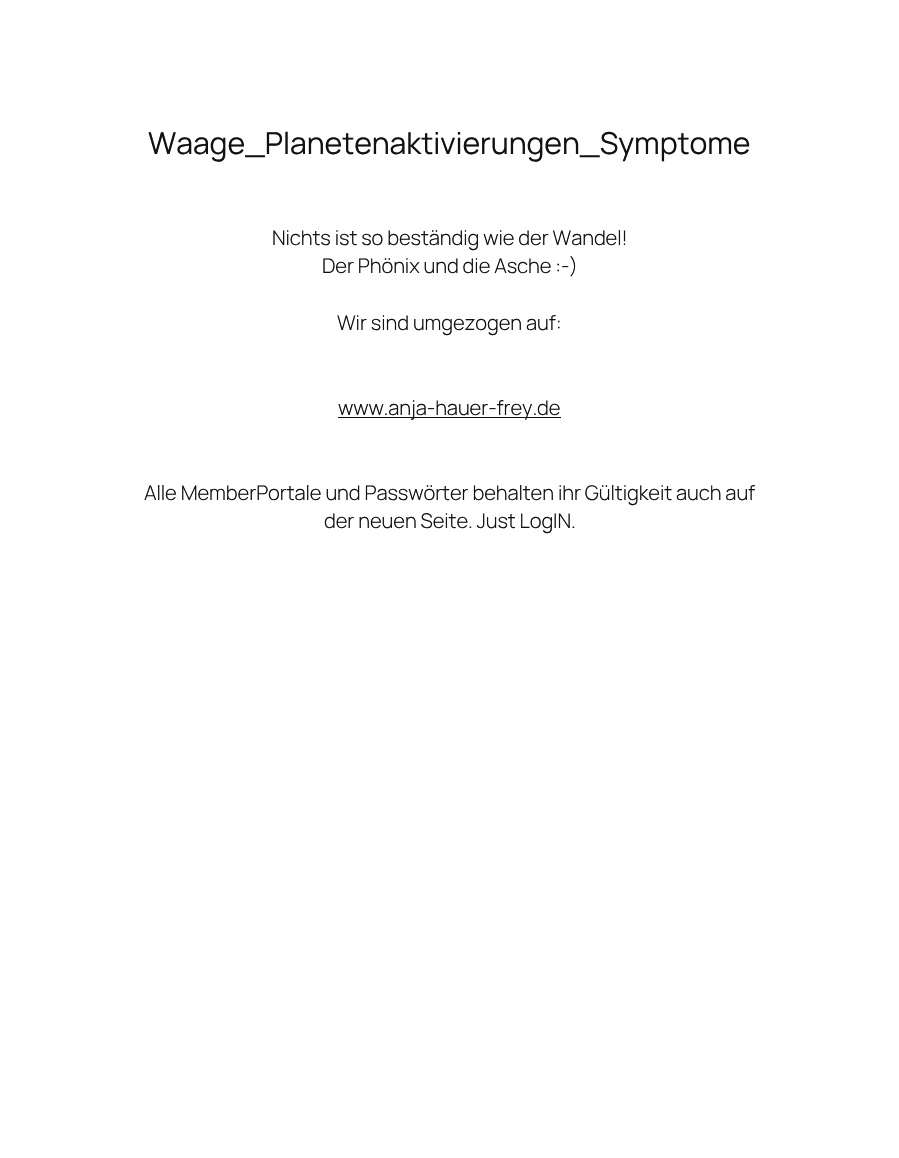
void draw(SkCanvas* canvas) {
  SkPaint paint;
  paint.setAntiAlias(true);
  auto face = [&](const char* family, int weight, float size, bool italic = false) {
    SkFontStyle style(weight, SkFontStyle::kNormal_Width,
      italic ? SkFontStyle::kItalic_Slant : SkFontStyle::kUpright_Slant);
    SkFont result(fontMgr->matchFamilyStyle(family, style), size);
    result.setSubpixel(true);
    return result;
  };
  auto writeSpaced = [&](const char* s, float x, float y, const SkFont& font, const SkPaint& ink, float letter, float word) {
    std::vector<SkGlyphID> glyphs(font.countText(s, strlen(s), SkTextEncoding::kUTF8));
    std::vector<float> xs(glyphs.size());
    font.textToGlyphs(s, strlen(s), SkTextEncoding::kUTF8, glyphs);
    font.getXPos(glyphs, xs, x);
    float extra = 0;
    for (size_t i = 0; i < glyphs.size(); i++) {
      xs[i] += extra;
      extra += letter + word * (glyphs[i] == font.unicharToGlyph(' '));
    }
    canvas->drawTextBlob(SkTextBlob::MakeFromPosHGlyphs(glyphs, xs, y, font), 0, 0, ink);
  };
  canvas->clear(0xffffffff);
  paint.setColor(0xff111111);
  canvas->drawRect(SkRect::MakeXYWH(338, 417, 223, 1), paint);
  auto f0 = face("Manrope", 400, 30.25f);
  writeSpaced("Waage_Planetenaktivierungen_Symptome", 148, 154, f0, paint, -0.1f, 0);
  auto f1 = face("Manrope", 300, 20.25f);
  {
    const struct { const char* s; float x, y; } items[] = {
      {"Nichts ist so beständig wie der Wandel!", 272, 245},
      {"Der Phönix und die Asche :-)", 322, 273},
      {"Wir sind umgezogen auf:", 337, 330},
      {"www.anja-hauer-frey.de", 338, 415},
      {"Alle MemberPortale und Passwörter behalten ihr Gültigkeit auch auf", 144, 500},
      {"der neuen Seite. Just LogIN.", 324, 528},
    };
    for (auto [s, x, y] : items) {
      writeSpaced(s, x, y, f1, paint, -0.1f, 0);
    }
  }
}
